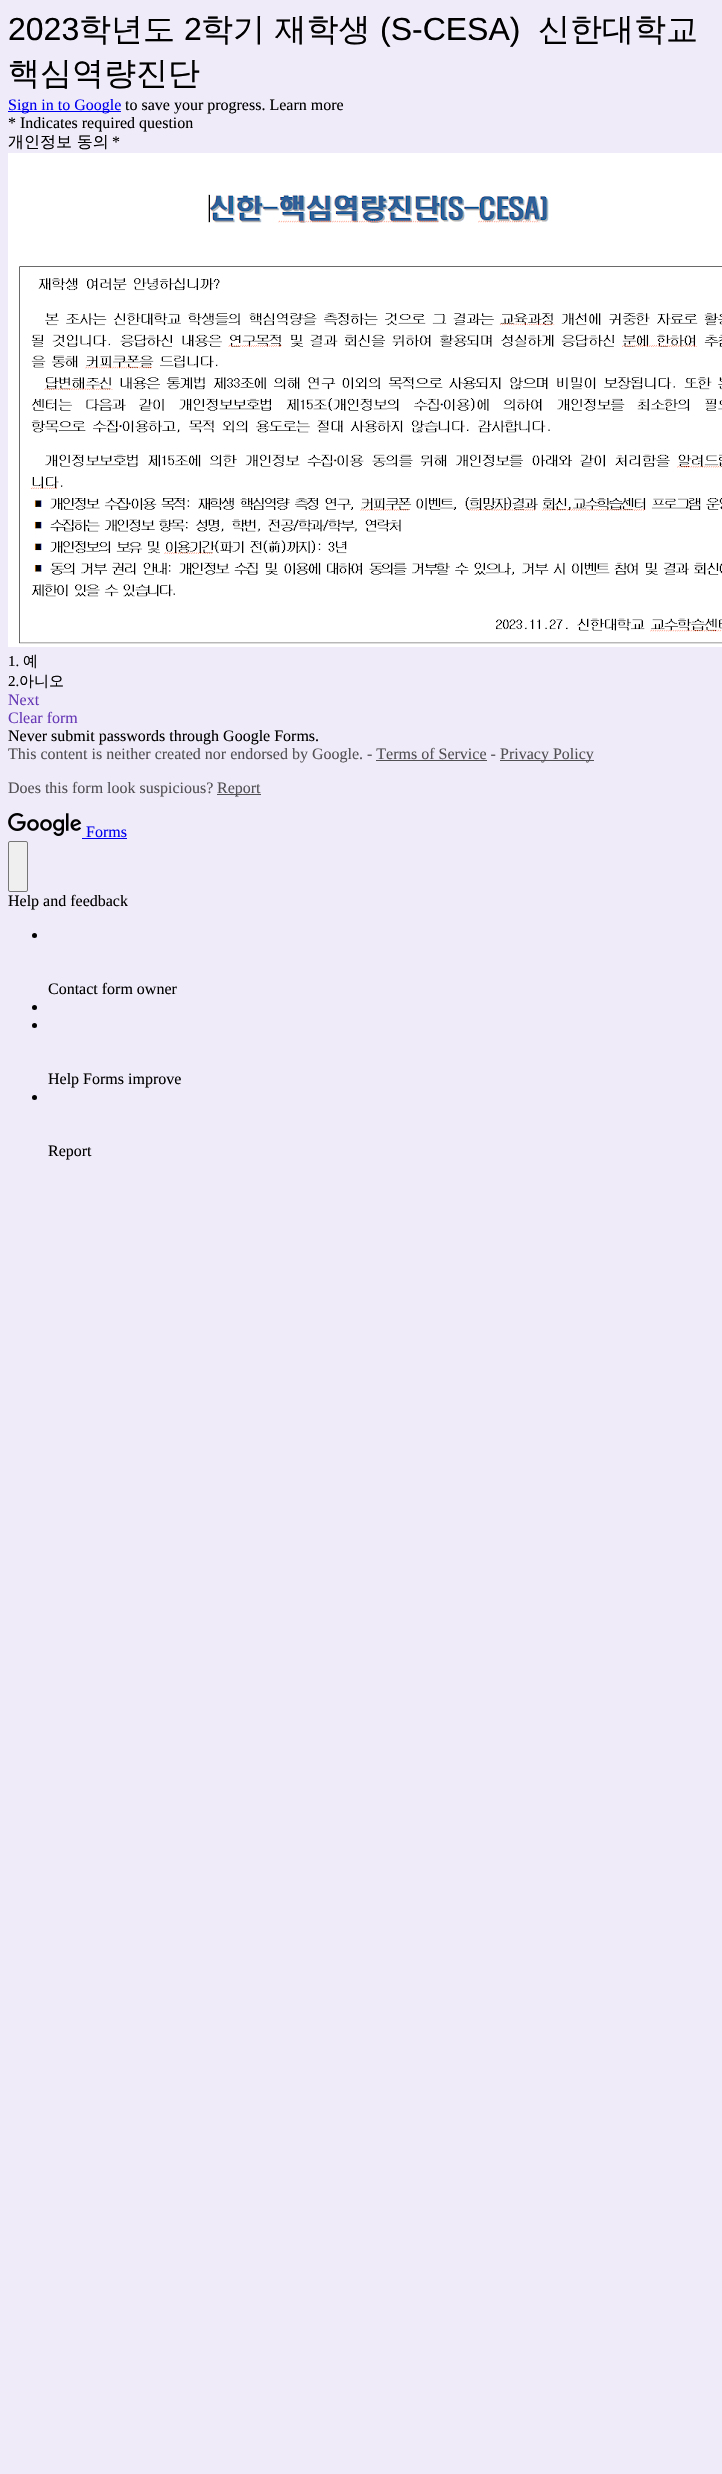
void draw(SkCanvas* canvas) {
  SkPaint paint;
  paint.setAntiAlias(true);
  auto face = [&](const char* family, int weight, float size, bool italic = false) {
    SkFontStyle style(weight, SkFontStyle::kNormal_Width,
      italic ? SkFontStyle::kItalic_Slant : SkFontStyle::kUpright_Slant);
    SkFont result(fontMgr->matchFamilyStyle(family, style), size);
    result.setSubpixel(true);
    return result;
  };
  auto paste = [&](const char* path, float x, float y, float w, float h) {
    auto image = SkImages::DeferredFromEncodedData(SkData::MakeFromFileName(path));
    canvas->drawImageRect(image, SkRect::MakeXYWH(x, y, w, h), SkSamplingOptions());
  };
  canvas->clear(0xfff0ebf8);
  paint.setColor(0xff0000ee);
  canvas->drawRect(SkRect::MakeXYWH(8, 111, 113, 1), paint);
  paste("img/1.png", 8, 153, 714, 494);
  {
    const struct { float x, y, w, h; SkColor color; } items[] = {
      {500, 760, 94, 1, 0xff525054},
      {376, 760, 111, 1, 0xff525054},
      {217, 794, 44, 1, 0xff525054},
    };
    for (auto [x, y, w, h, color] : items) {
      paint.setColor(color);
      canvas->drawRect(SkRect::MakeXYWH(x, y, w, h), paint);
    }
  }
  paste("img/2.png", 8, 813, 74, 23);
  paint.setColor(0xff0000ee);
  canvas->drawRect(SkRect::MakeXYWH(82, 838, 45, 1), paint);
  paint.setColor(0xffefefef);
  canvas->drawRoundRect(SkRect::MakeXYWH(8.5f, 841.5f, 19, 50), 1.5f, 1.5f, paint);
  paint.setStroke(true);
  paint.setStrokeWidth(1);
  paint.setColor(0xff767676);
  canvas->drawRoundRect(SkRect::MakeXYWH(8.5f, 841.5f, 19, 50), 1.5f, 1.5f, paint);
  paint.setStroke(false);
  paint.setColor(0xff000000);
  canvas->drawCircle(34.5f, 935.5f, 2.5f, paint);
  canvas->drawCircle(34.5f, 1007.5f, 2.5f, paint);
  canvas->drawCircle(34.5f, 1025.5f, 2.5f, paint);
  canvas->drawCircle(34.5f, 1097.5f, 2.5f, paint);
  auto f0 = face("Liberation Sans", 400, 32);
  canvas->drawString("2023", 8, 40, f0, paint);
  auto f1 = face("WenQuanYi Zen Hei", 500, 32);
  canvas->drawString("학년도", 79, 40, f1, paint);
  canvas->drawString("2", 184, 40, f0, paint);
  canvas->drawString("학기 재학생", 201, 40, f1, paint);
  canvas->drawString("(S-CESA)", 380, 40, f0, paint);
  canvas->drawString("신한대학교", 538, 40, f1, paint);
  canvas->drawString("핵심역량진단", 8, 84, f1, paint);
  auto f2 = face("Liberation Serif", 400, 16);
  paint.setColor(0xff0000ee);
  canvas->drawString("Sign in to Google", 8, 110, f2, paint);
  paint.setColor(0xff000000);
  canvas->drawString("to save your progress. Learn more", 125, 110, f2, paint);
  canvas->drawString("* Indicates required question", 8, 128, f2, paint);
  auto f3 = face("WenQuanYi Zen Hei", 500, 16);
  canvas->drawString("개인정보 동의", 8, 147, f3, paint);
  canvas->drawString("*", 112, 147, f2, paint);
  auto f4 = face("Liberation Serif", 400, 15);
  canvas->drawString("1.", 8, 666, f4, paint);
  auto f5 = face("WenQuanYi Zen Hei", 500, 15);
  canvas->drawString("예", 23, 666, f5, paint);
  canvas->drawString("2.", 8, 686, f4, paint);
  canvas->drawString("아니오", 19, 686, f5, paint);
  paint.setColor(0xff673ab7);
  canvas->drawString("Next", 8, 705, f2, paint);
  canvas->drawString("Clear form", 8, 723, f2, paint);
  paint.setColor(0xff000000);
  canvas->drawString("Never submit passwords through Google Forms.", 8, 741, f2, paint);
  paint.setColor(0xff525054);
  {
    const struct { const char* s; float x, y; } items[] = {
      {"This content is neither created nor endorsed by Google. - Terms of Service -", 8, 759},
      {"Privacy Policy", 500, 759},
      {"Does this form look suspicious?", 8, 793},
      {"Report", 217, 793},
    };
    for (auto [s, x, y] : items) {
      canvas->drawString(s, x, y, f2, paint);
    }
  }
  paint.setColor(0xff0000ee);
  canvas->drawString("Forms", 86, 837, f2, paint);
  paint.setColor(0xff000000);
  {
    const struct { const char* s; float x, y; } items[] = {
      {"Help and feedback", 8, 906},
      {"Contact form owner", 48, 994},
      {"Help Forms improve", 48, 1084},
      {"Report", 48, 1156},
    };
    for (auto [s, x, y] : items) {
      canvas->drawString(s, x, y, f2, paint);
    }
  }
}
